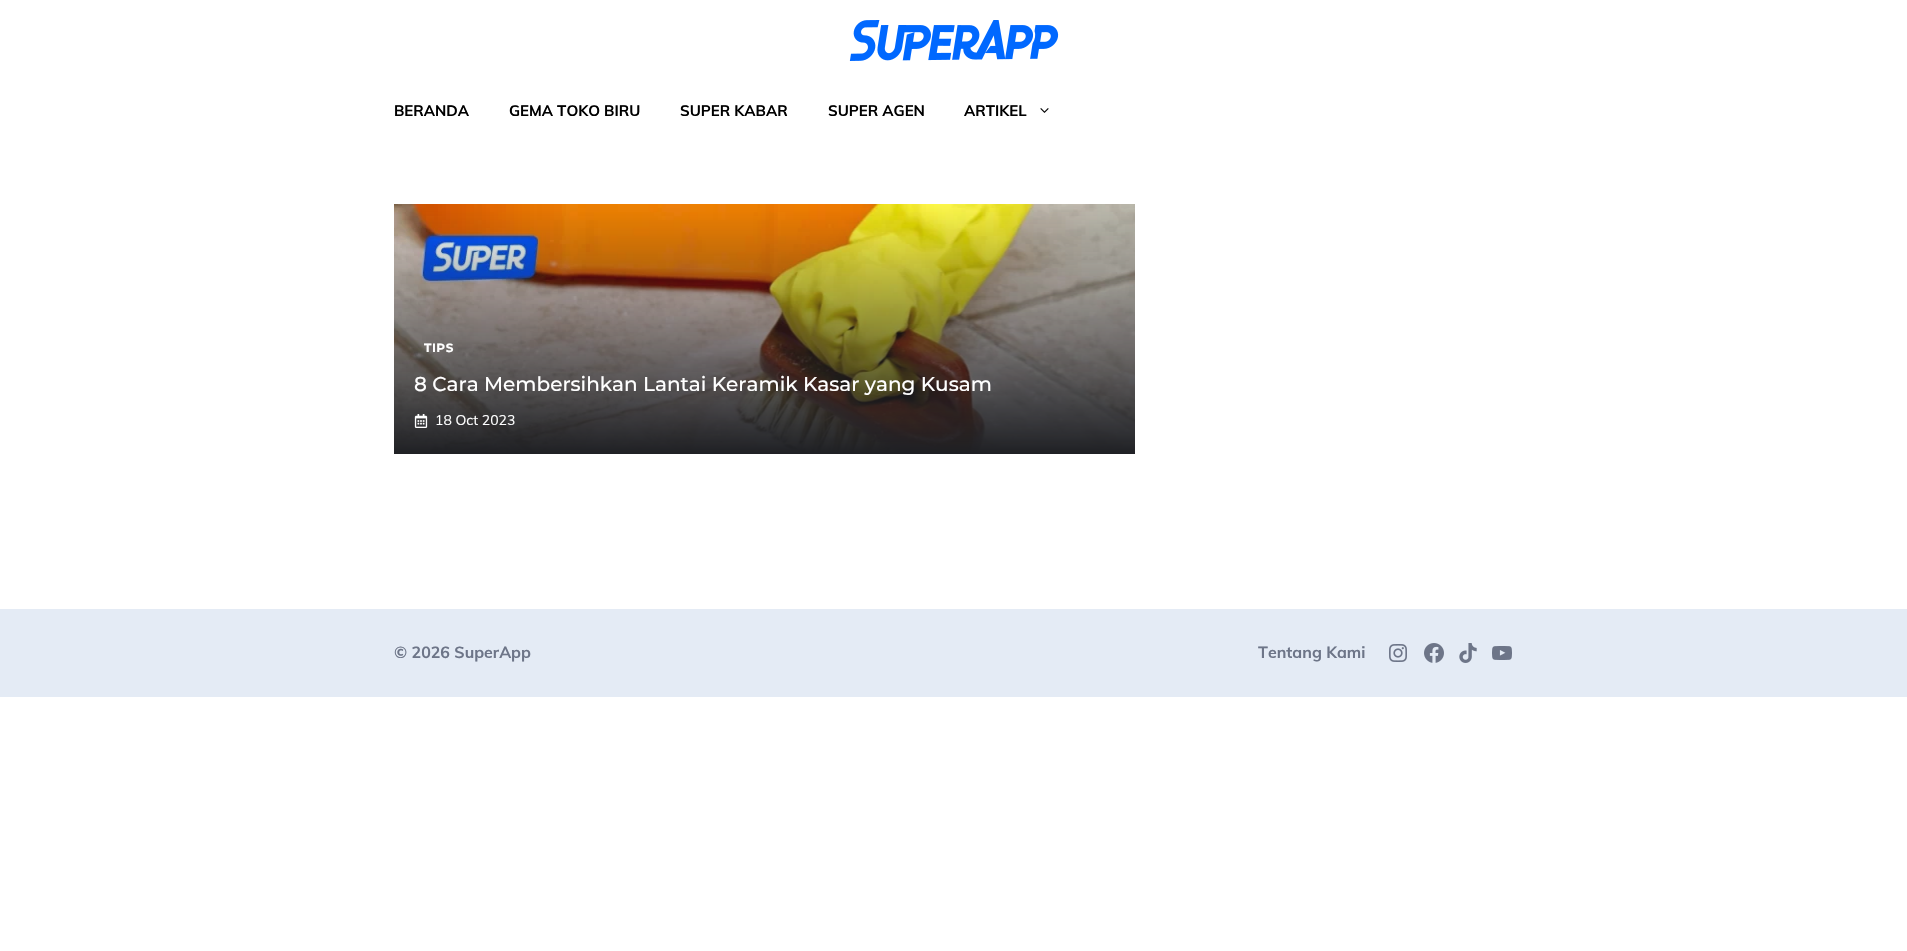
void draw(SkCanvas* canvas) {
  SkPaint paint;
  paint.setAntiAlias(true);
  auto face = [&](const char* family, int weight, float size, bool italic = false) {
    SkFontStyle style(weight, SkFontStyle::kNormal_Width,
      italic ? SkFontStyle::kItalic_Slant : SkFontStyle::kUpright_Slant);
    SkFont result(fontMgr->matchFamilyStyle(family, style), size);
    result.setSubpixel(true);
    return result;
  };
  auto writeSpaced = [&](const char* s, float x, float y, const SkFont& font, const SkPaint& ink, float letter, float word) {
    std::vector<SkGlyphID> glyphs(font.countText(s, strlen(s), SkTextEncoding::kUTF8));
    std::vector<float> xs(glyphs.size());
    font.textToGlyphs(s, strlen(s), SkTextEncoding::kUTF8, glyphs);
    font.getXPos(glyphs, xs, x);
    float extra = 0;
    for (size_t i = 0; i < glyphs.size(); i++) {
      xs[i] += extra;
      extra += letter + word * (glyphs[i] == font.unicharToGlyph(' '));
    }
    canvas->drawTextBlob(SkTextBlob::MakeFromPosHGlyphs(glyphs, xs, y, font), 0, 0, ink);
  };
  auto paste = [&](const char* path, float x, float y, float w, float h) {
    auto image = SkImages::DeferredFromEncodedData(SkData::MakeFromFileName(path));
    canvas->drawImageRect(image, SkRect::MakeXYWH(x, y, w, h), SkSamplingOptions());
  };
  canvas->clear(0xffffffff);
  paste("img/1.png", 849, 20, 210, 41);
  paste("img/2.png", 1040, 108, 9, 5);
  paste("img/3.png", 394, 204, 741, 250);
  paste("img/4.png", 414, 414, 14, 14);
  paint.setColor(0xffe4ebf5);
  canvas->drawRect(SkRect::MakeXYWH(0, 609, 1907, 88), paint);
  paste("img/5.png", 1389, 644, 18, 18);
  paste("img/6.png", 1424, 643, 20, 20);
  paste("img/7.png", 1459, 643, 18, 20);
  paste("img/8.png", 1492, 646, 20, 14);
  auto f0 = face("Muli", 700, 15);
  paint.setColor(0xff000000);
  {
    const struct { const char* s; float x, y; } items[] = {
      {"BERANDA", 394, 116},
      {"GEMA TOKO BIRU", 509, 116},
      {"SUPER KABAR", 680, 116},
      {"SUPER AGEN", 828, 116},
      {"ARTIKEL", 964, 116},
    };
    for (auto [s, x, y] : items) {
      canvas->drawString(s, x, y, f0, paint);
    }
  }
  auto f1 = face("Montserrat", 700, 12);
  paint.setColor(0xffffffff);
  writeSpaced("TIPS", 424, 352, f1, paint, 0.5f, 0);
  auto f2 = face("Montserrat", 500, 20);
  canvas->drawString("8 Cara Membersihkan Lantai Keramik Kasar yang Kusam", 414, 391, f2, paint);
  auto f3 = face("Muli", 400, 14);
  canvas->drawString("18 Oct 2023", 435, 425, f3, paint);
  auto f4 = face("Muli", 700, 16);
  paint.setColor(0xff6d7588);
  canvas->drawString("© 2026 SuperApp", 394, 658, f4, paint);
  canvas->drawString("Tentang Kami", 1258, 658, f4, paint);
}
